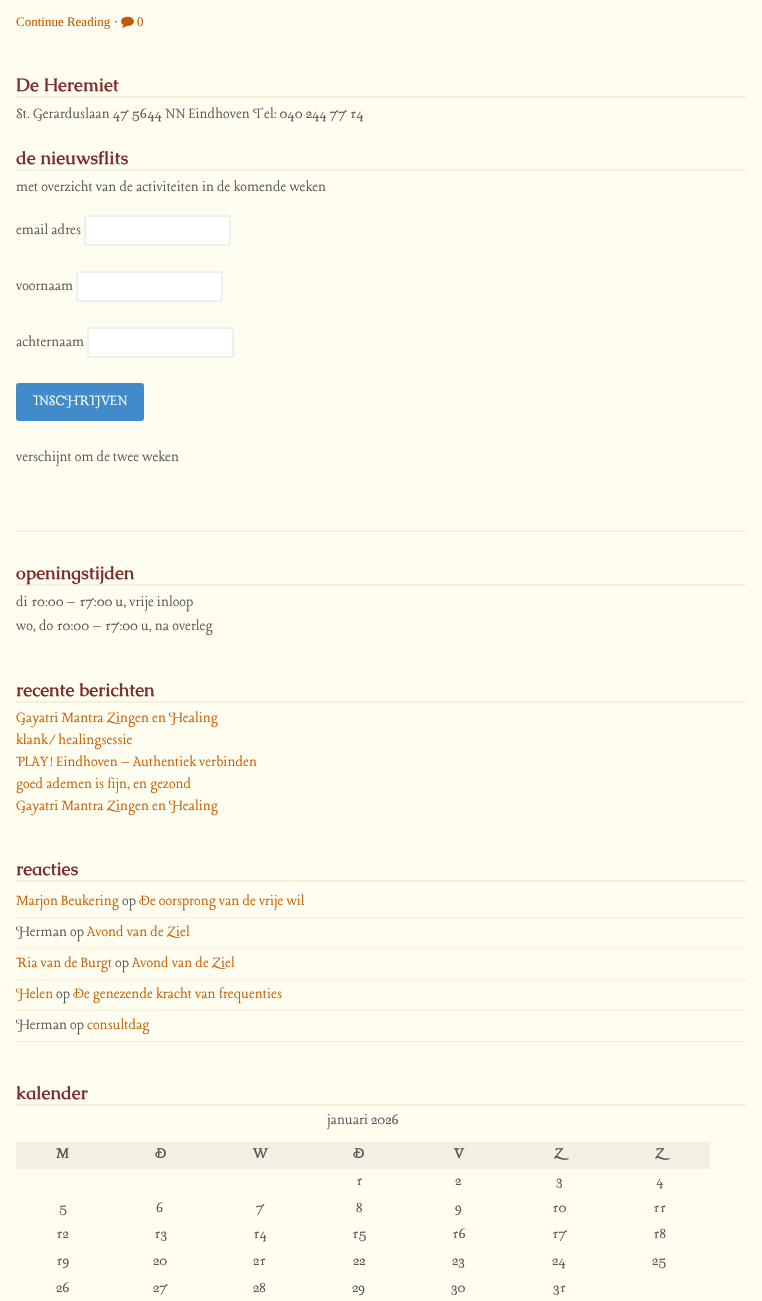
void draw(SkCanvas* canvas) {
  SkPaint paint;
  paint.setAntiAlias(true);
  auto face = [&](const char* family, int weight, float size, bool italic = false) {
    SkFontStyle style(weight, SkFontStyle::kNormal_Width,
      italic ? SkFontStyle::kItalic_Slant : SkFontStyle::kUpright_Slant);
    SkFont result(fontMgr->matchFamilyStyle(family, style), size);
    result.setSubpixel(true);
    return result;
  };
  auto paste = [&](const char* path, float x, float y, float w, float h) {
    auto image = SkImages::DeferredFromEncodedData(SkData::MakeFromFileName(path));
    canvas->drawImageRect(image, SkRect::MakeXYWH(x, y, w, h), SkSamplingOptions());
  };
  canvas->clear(0xfffffdef);
  paste("img/1.png", 121, 16, 13, 12);
  paint.setColor(0xfff5f1d5);
  canvas->drawRect(SkRect::MakeXYWH(16, 96, 730, 2), paint);
  canvas->drawRect(SkRect::MakeXYWH(16, 169, 730, 2), paint);
  paint.setColor(0xffffffff);
  canvas->drawRoundRect(SkRect::MakeXYWH(85, 216, 145, 29), 2, 2, paint);
  paint.setStroke(true);
  paint.setStrokeWidth(2);
  paint.setColor(0xffefefef);
  canvas->drawRoundRect(SkRect::MakeXYWH(85, 216, 145, 29), 2, 2, paint);
  paint.setStroke(false);
  paint.setColor(0xffffffff);
  canvas->drawRoundRect(SkRect::MakeXYWH(77, 272, 145, 29), 2, 2, paint);
  paint.setStroke(true);
  paint.setColor(0xffefefef);
  canvas->drawRoundRect(SkRect::MakeXYWH(77, 272, 145, 29), 2, 2, paint);
  paint.setStroke(false);
  paint.setColor(0xffffffff);
  canvas->drawRoundRect(SkRect::MakeXYWH(88, 328, 145, 29), 2, 2, paint);
  paint.setStroke(true);
  paint.setColor(0xffefefef);
  canvas->drawRoundRect(SkRect::MakeXYWH(88, 328, 145, 29), 2, 2, paint);
  paint.setStroke(false);
  paint.setColor(0xff428bca);
  canvas->drawRoundRect(SkRect::MakeXYWH(16, 383, 128, 38), 3, 3, paint);
  {
    const struct { float x, y, w, h; SkColor color; } items[] = {
      {16, 530, 730, 2, 0xfff5f1d5},
      {16, 584, 730, 2, 0xfff5f1d5},
      {16, 701, 730, 2, 0xfff5f1d5},
      {16, 880, 730, 2, 0xfff5f1d5},
      {16, 917, 730, 1, 0xfff5f1d5},
      {16, 948, 730, 1, 0xfff5f1d5},
      {16, 979, 730, 1, 0xfff5f1d5},
      {16, 1010, 730, 1, 0xfff5f1d5},
      {16, 1041, 730, 1, 0xfff5f1d5},
      {16, 1104, 730, 2, 0xfff5f1d5},
      {16, 1142, 694, 27, 0xfff2f0e3},
    };
    for (auto [x, y, w, h, color] : items) {
      paint.setColor(color);
      canvas->drawRect(SkRect::MakeXYWH(x, y, w, h), paint);
    }
  }
  auto f0 = face("Liberation Serif", 400, 13);
  paint.setColor(0xffc45b00);
  canvas->drawString("Continue Reading", 16, 26, f0, paint);
  paint.setColor(0xff555555);
  canvas->drawString("·", 114, 26, f0, paint);
  paint.setColor(0xffc45b00);
  canvas->drawString("0", 137, 26, f0, paint);
  auto f1 = face("Caudex", 700, 18);
  paint.setColor(0xff7b2e2b);
  canvas->drawString("De Heremiet", 16, 91, f1, paint);
  auto f2 = face("Lancelot", 400, 16);
  paint.setColor(0xff555555);
  canvas->drawString("St. Gerarduslaan 47 5644 NN Eindhoven Tel: 040 244 77 14", 16, 118, f2, paint);
  paint.setColor(0xff7b2e2b);
  canvas->drawString("de nieuwsflits", 16, 164, f1, paint);
  paint.setColor(0xff555555);
  {
    const struct { const char* s; float x, y; } items[] = {
      {"met overzicht van de activiteiten in de komende weken", 16, 191},
      {"email adres", 16, 234},
      {"voornaam", 16, 290},
      {"achternaam", 16, 346},
    };
    for (auto [s, x, y] : items) {
      canvas->drawString(s, x, y, f2, paint);
    }
  }
  paint.setColor(0xffffffff);
  canvas->drawString("INSCHRIJVEN", 33, 405, f2, paint);
  paint.setColor(0xff555555);
  canvas->drawString("verschijnt om de twee weken", 16, 461, f2, paint);
  paint.setColor(0xff7b2e2b);
  canvas->drawString("openingstijden", 16, 579, f1, paint);
  paint.setColor(0xff555555);
  canvas->drawString("di 10:00 – 17:00 u, vrije inloop", 16, 606, f2, paint);
  canvas->drawString("wo, do 10:00 – 17:00 u, na overleg", 16, 630, f2, paint);
  paint.setColor(0xff7b2e2b);
  canvas->drawString("recente berichten", 16, 696, f1, paint);
  paint.setColor(0xffc45b00);
  {
    const struct { const char* s; float x, y; } items[] = {
      {"Gayatri Mantra Zingen en Healing", 16, 722},
      {"klank/healingsessie", 16, 744},
      {"PLAY! Eindhoven – Authentiek verbinden", 16, 766},
      {"goed ademen is fijn, en gezond", 16, 788},
      {"Gayatri Mantra Zingen en Healing", 16, 810},
    };
    for (auto [s, x, y] : items) {
      canvas->drawString(s, x, y, f2, paint);
    }
  }
  paint.setColor(0xff7b2e2b);
  canvas->drawString("reacties", 16, 875, f1, paint);
  paint.setColor(0xffc45b00);
  canvas->drawString("Marjon Beukering", 16, 905, f2, paint);
  paint.setColor(0xff555555);
  canvas->drawString("op", 122, 905, f2, paint);
  paint.setColor(0xffc45b00);
  canvas->drawString("De oorsprong van de vrije wil", 139, 905, f2, paint);
  paint.setColor(0xff555555);
  canvas->drawString("Herman op", 16, 936, f2, paint);
  paint.setColor(0xffc45b00);
  canvas->drawString("Avond van de Ziel", 87, 936, f2, paint);
  canvas->drawString("Ria van de Burgt", 16, 967, f2, paint);
  paint.setColor(0xff555555);
  canvas->drawString("op", 115, 967, f2, paint);
  paint.setColor(0xffc45b00);
  canvas->drawString("Avond van de Ziel", 132, 967, f2, paint);
  canvas->drawString("Helen", 16, 998, f2, paint);
  paint.setColor(0xff555555);
  canvas->drawString("op", 56, 998, f2, paint);
  paint.setColor(0xffc45b00);
  canvas->drawString("De genezende kracht van frequenties", 73, 998, f2, paint);
  paint.setColor(0xff555555);
  canvas->drawString("Herman op", 16, 1029, f2, paint);
  paint.setColor(0xffc45b00);
  canvas->drawString("consultdag", 87, 1029, f2, paint);
  paint.setColor(0xff7b2e2b);
  canvas->drawString("kalender", 16, 1099, f1, paint);
  paint.setColor(0xff555555);
  canvas->drawString("januari 2026", 327, 1124, f2, paint);
  auto f3 = face("Lancelot", 700, 16);
  {
    const struct { const char* s; float x, y; } items[] = {
      {"M", 56, 1158},
      {"D", 155, 1158},
      {"W", 253, 1158},
      {"D", 353, 1158},
      {"V", 454, 1158},
      {"Z", 554, 1158},
      {"Z", 655, 1158},
    };
    for (auto [s, x, y] : items) {
      canvas->drawString(s, x, y, f3, paint);
    }
  }
  {
    const struct { const char* s; float x, y; } items[] = {
      {"1", 356, 1185},
      {"2", 455, 1185},
      {"3", 556, 1185},
      {"4", 656, 1185},
      {"5", 59, 1212},
      {"6", 156, 1212},
      {"7", 256, 1212},
      {"8", 356, 1212},
      {"9", 455, 1212},
      {"10", 552, 1212},
      {"11", 653, 1212},
      {"12", 56, 1238},
      {"13", 154, 1238},
      {"14", 253, 1238},
      {"15", 352, 1238},
      {"16", 452, 1238},
      {"17", 552, 1238},
      {"18", 653, 1238},
      {"19", 56, 1265},
      {"20", 153, 1265},
      {"21", 253, 1265},
      {"22", 353, 1265},
      {"23", 452, 1265},
      {"24", 552, 1265},
      {"25", 652, 1265},
      {"26", 56, 1292},
      {"27", 153, 1292},
      {"28", 253, 1292},
      {"29", 352, 1292},
      {"30", 451, 1292},
      {"31", 553, 1292},
    };
    for (auto [s, x, y] : items) {
      canvas->drawString(s, x, y, f2, paint);
    }
  }
}
